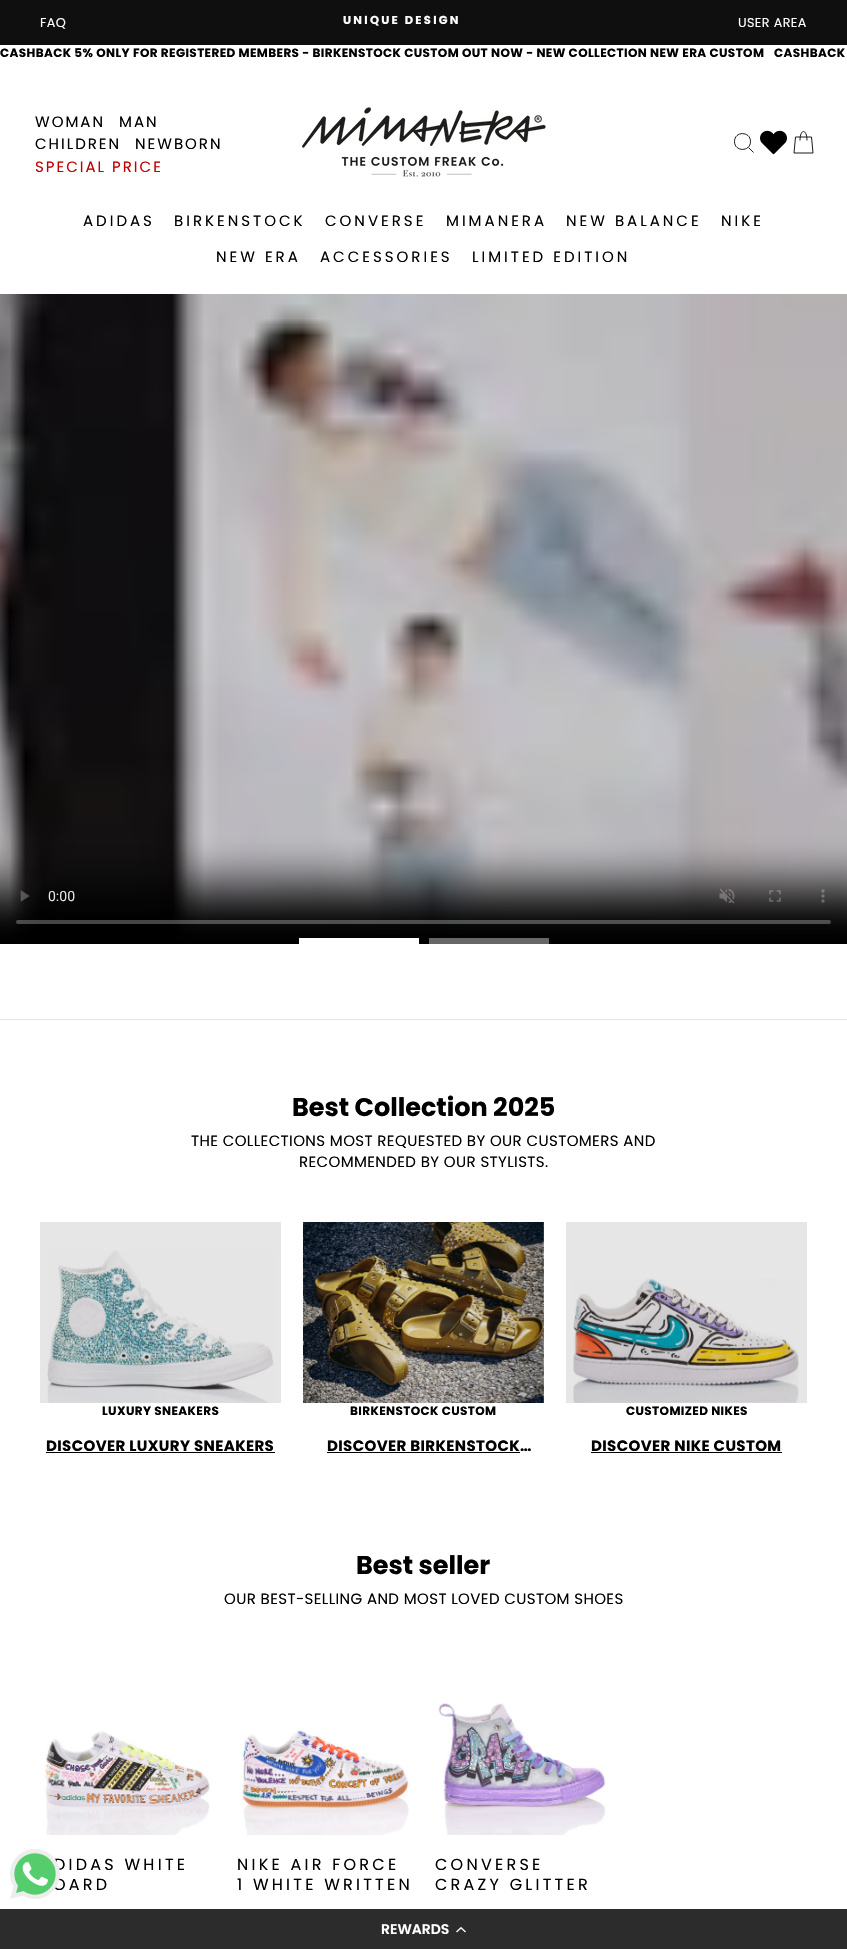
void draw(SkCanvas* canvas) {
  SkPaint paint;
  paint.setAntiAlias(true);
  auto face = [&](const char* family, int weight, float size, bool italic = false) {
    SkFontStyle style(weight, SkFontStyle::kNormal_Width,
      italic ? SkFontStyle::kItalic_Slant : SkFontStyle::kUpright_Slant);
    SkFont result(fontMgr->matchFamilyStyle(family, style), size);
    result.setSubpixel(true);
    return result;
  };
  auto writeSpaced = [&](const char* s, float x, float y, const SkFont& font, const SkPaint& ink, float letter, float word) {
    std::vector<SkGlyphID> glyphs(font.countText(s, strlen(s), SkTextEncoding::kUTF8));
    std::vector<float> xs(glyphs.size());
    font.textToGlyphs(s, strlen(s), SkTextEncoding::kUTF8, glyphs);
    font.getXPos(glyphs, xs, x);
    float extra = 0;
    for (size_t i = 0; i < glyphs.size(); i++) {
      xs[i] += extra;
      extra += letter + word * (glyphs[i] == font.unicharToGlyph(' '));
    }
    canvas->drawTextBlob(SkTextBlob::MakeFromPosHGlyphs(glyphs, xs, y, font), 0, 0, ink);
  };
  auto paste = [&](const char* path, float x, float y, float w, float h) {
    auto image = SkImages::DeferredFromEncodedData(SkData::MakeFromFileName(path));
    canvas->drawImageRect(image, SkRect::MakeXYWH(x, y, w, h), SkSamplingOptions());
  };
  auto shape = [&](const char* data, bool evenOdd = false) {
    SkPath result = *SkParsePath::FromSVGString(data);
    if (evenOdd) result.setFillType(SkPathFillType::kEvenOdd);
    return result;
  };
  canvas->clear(0xffffffff);
  {
    const struct { float x, y, w, h; SkColor color; } items[] = {
      {566, 1222, 241, 181, 0xffe6e6e6},
      {40, 1222, 241, 181, 0xffe6e6e6},
      {0, 0, 847, 45, 0xff0f0f0f},
    };
    for (auto [x, y, w, h, color] : items) {
      paint.setColor(color);
      canvas->drawRect(SkRect::MakeXYWH(x, y, w, h), paint);
    }
  }
  paste("img/1.png", 301, 107, 245, 70);
  paint.setStroke(true);
  paint.setStrokeWidth(0.9f);
  paint.setColor(0xff000000);
  canvas->drawPath(shape("M750.5 141.5C750.5 152 734.5 152 734.5 141.5C734.5 131 750.5 131 750.5 141.5ZM753.5 152.5L748.5 147.5"), paint);
  paste("img/2.png", 760, 130, 27, 25);
  canvas->drawPath(shape("M800 140.5C800 128.5 807 128.5 807 140.5M795.5 137H811.5L813 153H794Z"), paint);
  paste("img/3.png", 0, 294, 847, 650);
  paint.setStroke(false);
  {
    const struct { float x, y, w, h; SkColor color; } items[] = {
      {299, 938, 120, 6, 0xffffffff},
      {429, 938, 120, 6, 0xff676767},
      {0, 1019, 847, 1, 0xffe8e8e1},
    };
    for (auto [x, y, w, h, color] : items) {
      paint.setColor(color);
      canvas->drawRect(SkRect::MakeXYWH(x, y, w, h), paint);
    }
  }
  paste("img/4.png", 47, 1250, 227, 153);
  paint.setColor(0xff000000);
  canvas->drawRect(SkRect::MakeXYWH(46, 1452, 229, 1), paint);
  paste("img/5.png", 303, 1222, 241, 181);
  canvas->drawRect(SkRect::MakeXYWH(327, 1452, 193, 1), paint);
  paste("img/6.png", 573, 1278, 226, 125);
  canvas->drawRect(SkRect::MakeXYWH(591, 1452, 191, 1), paint);
  paste("img/7.png", 44, 1731, 167, 104);
  paste("img/8.png", 242, 1730, 167, 105);
  paste("img/9.png", 438, 1703, 168, 132);
  paint.setColor(0xff2c2c2c);
  canvas->drawRect(SkRect::MakeXYWH(0, 1909, 847, 40), paint);
  paste("img/11.png", 456, 1927, 10, 6);
  auto f0 = face("Poppins", 400, 12.75f);
  paint.setColor(0xffffffff);
  writeSpaced("FAQ", 40, 27, f0, paint, 0.38f, 0);
  auto f1 = face("Poppins", 700, 11.5f);
  writeSpaced("UNIQUE DESIGN", 343, 24, f1, paint, 2.25f, 0);
  writeSpaced("USER AREA", 738, 27, f0, paint, 0.38f, 0);
  auto f2 = face("Poppins", 700, 12);
  paint.setColor(0xff000000);
  writeSpaced("CASHBACK 5% ONLY FOR REGISTERED MEMBERS - BIRKENSTOCK CUSTOM OUT NOW - NEW COLLECTION NEW ERA CUSTOM", 0, 57, f2, paint, 0.38f, 0);
  writeSpaced("CASHBACK", 774, 57, f2, paint, 0.38f, 0);
  auto f3 = face("Poppins", 400, 15);
  {
    const struct { const char* s; float x, y; } items[] = {
      {"WOMAN", 35, 127},
      {"MAN", 119, 127},
      {"CHILDREN", 35, 149},
      {"NEWBORN", 135, 149},
    };
    for (auto [s, x, y] : items) {
      writeSpaced(s, x, y, f3, paint, 2, 0);
    }
  }
  paint.setColor(0xffc20000);
  writeSpaced("SPECIAL PRICE", 35, 172, f3, paint, 2, 0);
  paint.setColor(0xff000000);
  {
    const struct { const char* s; float x, y; } items[] = {
      {"ADIDAS", 83, 226},
      {"BIRKENSTOCK", 174, 226},
      {"CONVERSE", 325, 226},
      {"MIMANERA", 446, 226},
      {"NEW BALANCE", 566, 226},
      {"NIKE", 721, 226},
      {"NEW ERA", 216, 262},
      {"ACCESSORIES", 320, 262},
      {"LIMITED EDITION", 472, 262},
    };
    for (auto [s, x, y] : items) {
      writeSpaced(s, x, y, f3, paint, 3, 0);
    }
  }
  auto f4 = face("Poppins", 700, 25.5f);
  canvas->drawString("Best Collection 2025", 292, 1116, f4, paint);
  writeSpaced("THE COLLECTIONS MOST REQUESTED BY OUR CUSTOMERS AND", 191, 1146, f3, paint, 0.38f, 0);
  writeSpaced("RECOMMENDED BY OUR STYLISTS.", 299, 1167, f3, paint, 0.38f, 0);
  writeSpaced("LUXURY SNEAKERS", 102, 1415, f2, paint, 0.38f, 0);
  auto f5 = face("Poppins", 700, 15);
  writeSpaced("DISCOVER LUXURY SNEAKERS", 46, 1451, f5, paint, 0.38f, 0);
  writeSpaced("BIRKENSTOCK CUSTOM", 350, 1415, f2, paint, 0.38f, 0);
  writeSpaced("DISCOVER BIRKENSTOCK…", 327, 1451, f5, paint, 0.38f, 0);
  writeSpaced("CUSTOMIZED NIKES", 626, 1415, f2, paint, 0.38f, 0);
  writeSpaced("DISCOVER NIKE CUSTOM", 591, 1451, f5, paint, 0.38f, 0);
  canvas->drawString("Best seller", 356, 1574, f4, paint);
  writeSpaced("OUR BEST-SELLING AND MOST LOVED CUSTOM SHOES", 224, 1604, f3, paint, 0.38f, 0);
  auto f6 = face("Poppins", 400, 16);
  {
    const struct { const char* s; float x, y; } items[] = {
      {"DIDAS WHITE", 54, 1870},
      {"OARD", 53, 1890},
      {"NIKE AIR FORCE", 237, 1870},
      {"1 WHITE WRITTEN", 237, 1890},
      {"CONVERSE", 435, 1870},
      {"CRAZY GLITTER", 435, 1890},
    };
    for (auto [s, x, y] : items) {
      writeSpaced(s, x, y, f6, paint, 3.25f, 0);
    }
  }
  paste("img/10.png", 10, 1849, 50, 50);
  auto f7 = face("Poppins", 600, 14);
  paint.setColor(0xffffffff);
  canvas->drawString("REWARDS", 381, 1934, f7, paint);
}
